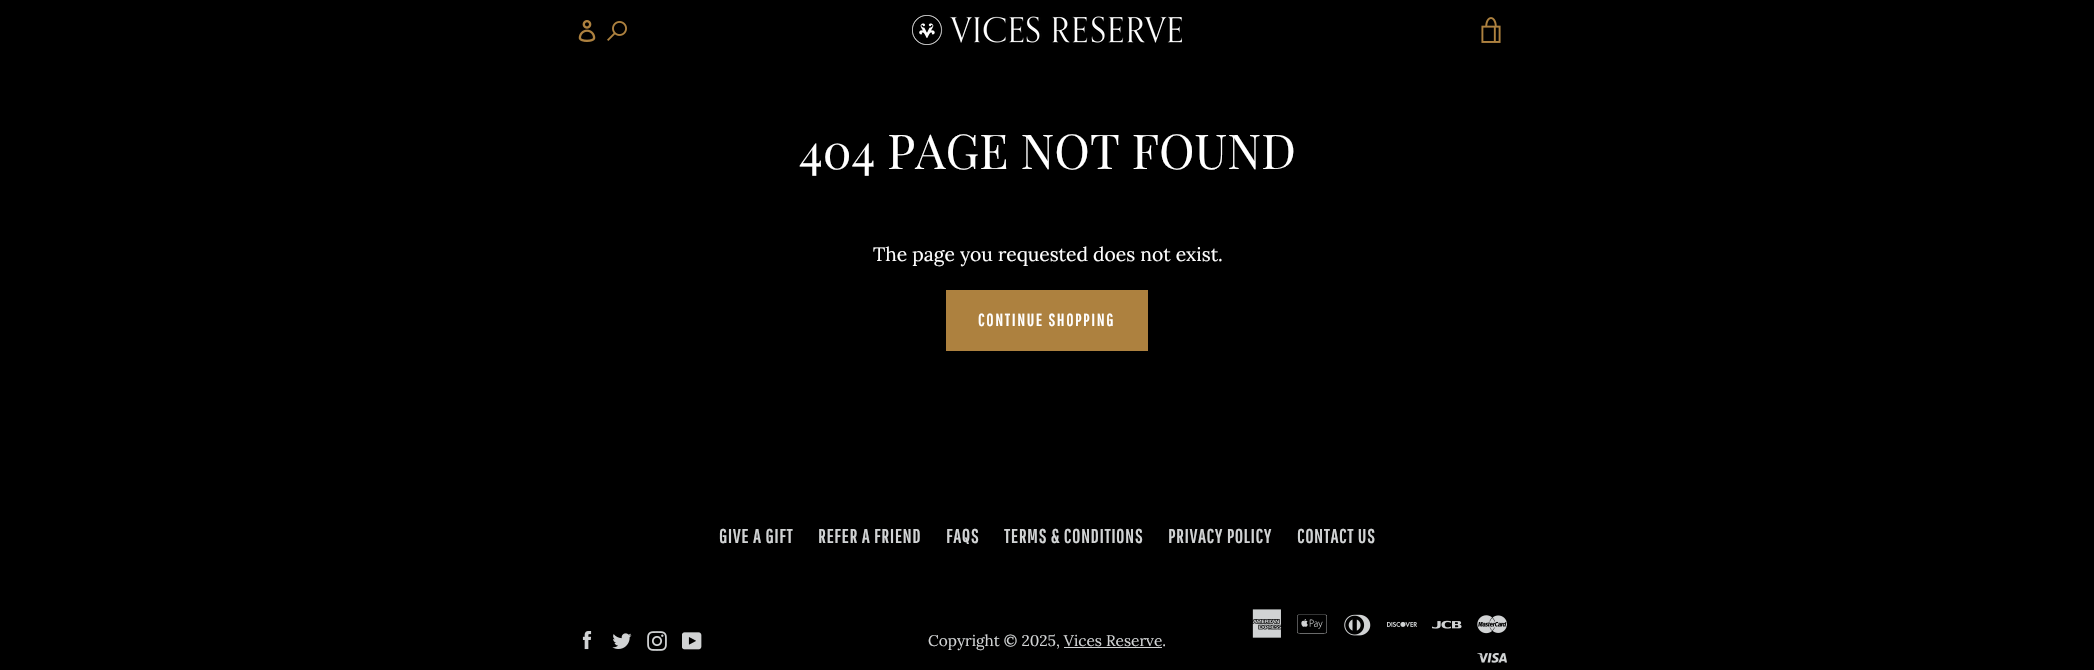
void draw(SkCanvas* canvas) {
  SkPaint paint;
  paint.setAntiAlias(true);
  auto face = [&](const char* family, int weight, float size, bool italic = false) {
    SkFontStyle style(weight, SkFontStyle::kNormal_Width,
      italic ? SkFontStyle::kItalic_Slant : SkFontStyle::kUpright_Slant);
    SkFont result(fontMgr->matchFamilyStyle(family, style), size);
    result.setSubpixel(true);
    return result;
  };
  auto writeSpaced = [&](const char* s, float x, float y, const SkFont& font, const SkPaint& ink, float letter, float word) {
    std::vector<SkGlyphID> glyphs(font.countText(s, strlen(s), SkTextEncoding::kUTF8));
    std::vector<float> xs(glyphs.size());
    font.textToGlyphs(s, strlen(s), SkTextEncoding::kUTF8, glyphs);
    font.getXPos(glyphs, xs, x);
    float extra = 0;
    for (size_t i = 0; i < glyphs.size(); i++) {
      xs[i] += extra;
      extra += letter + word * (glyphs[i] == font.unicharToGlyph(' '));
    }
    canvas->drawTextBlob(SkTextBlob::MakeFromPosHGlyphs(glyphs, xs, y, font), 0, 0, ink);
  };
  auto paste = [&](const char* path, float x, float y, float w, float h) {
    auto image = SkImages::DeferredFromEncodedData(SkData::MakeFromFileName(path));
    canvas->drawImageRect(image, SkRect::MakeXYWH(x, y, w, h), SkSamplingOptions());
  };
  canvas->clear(0xff000000);
  paste("img/1.png", 578, 20, 18, 22);
  paste("img/2.png", 607, 21, 20, 20);
  paste("img/3.png", 912, 15, 270, 30);
  paste("img/4.png", 1481, 17, 20, 26);
  paint.setColor(0xffad813f);
  canvas->drawRect(SkRect::MakeXYWH(946, 290, 202, 61), paint);
  paste("img/5.png", 582, 631, 10, 19);
  paste("img/6.png", 612, 633, 20, 16);
  paste("img/7.png", 647, 631, 20, 20);
  paste("img/8.png", 682, 632, 20, 18);
  paint.setColor(0xffd1d3d4);
  canvas->drawRect(SkRect::MakeXYWH(1064, 647, 98, 1), paint);
  paste("img/9.png", 1252, 609, 30, 29);
  paste("img/10.png", 1297, 614, 30, 20);
  paste("img/11.png", 1344, 614, 27, 22);
  paste("img/12.png", 1387, 621, 30, 6);
  paste("img/13.png", 1432, 620, 30, 9);
  paste("img/14.png", 1477, 615, 30, 19);
  paste("img/15.png", 1477, 653, 30, 10);
  auto f0 = face("Playfair Display", 400, 48);
  paint.setColor(0xffffffff);
  canvas->drawString("404 PAGE NOT FOUND", 799, 169, f0, paint);
  auto f1 = face("Lora", 400, 19.25f);
  canvas->drawString("The page you requested does not exist.", 873, 261, f1, paint);
  auto f2 = face("Pathway Gothic One", 700, 16.75f);
  writeSpaced("CONTINUE SHOPPING", 978, 326, f2, paint, 2, 0);
  auto f3 = face("Pathway Gothic One", 700, 19.25f);
  paint.setColor(0xffd1d3d4);
  {
    const struct { const char* s; float x, y; } items[] = {
      {"GIVE A GIFT", 719, 543},
      {"REFER A FRIEND", 818, 543},
      {"FAQS", 946, 543},
      {"TERMS & CONDITIONS", 1004, 543},
      {"PRIVACY POLICY", 1168, 543},
      {"CONTACT US", 1297, 543},
    };
    for (auto [s, x, y] : items) {
      writeSpaced(s, x, y, f3, paint, 1, 0);
    }
  }
  auto f4 = face("Lora", 400, 15.4f);
  canvas->drawString("Copyright © 2025, Vices Reserve.", 928, 646, f4, paint);
}
